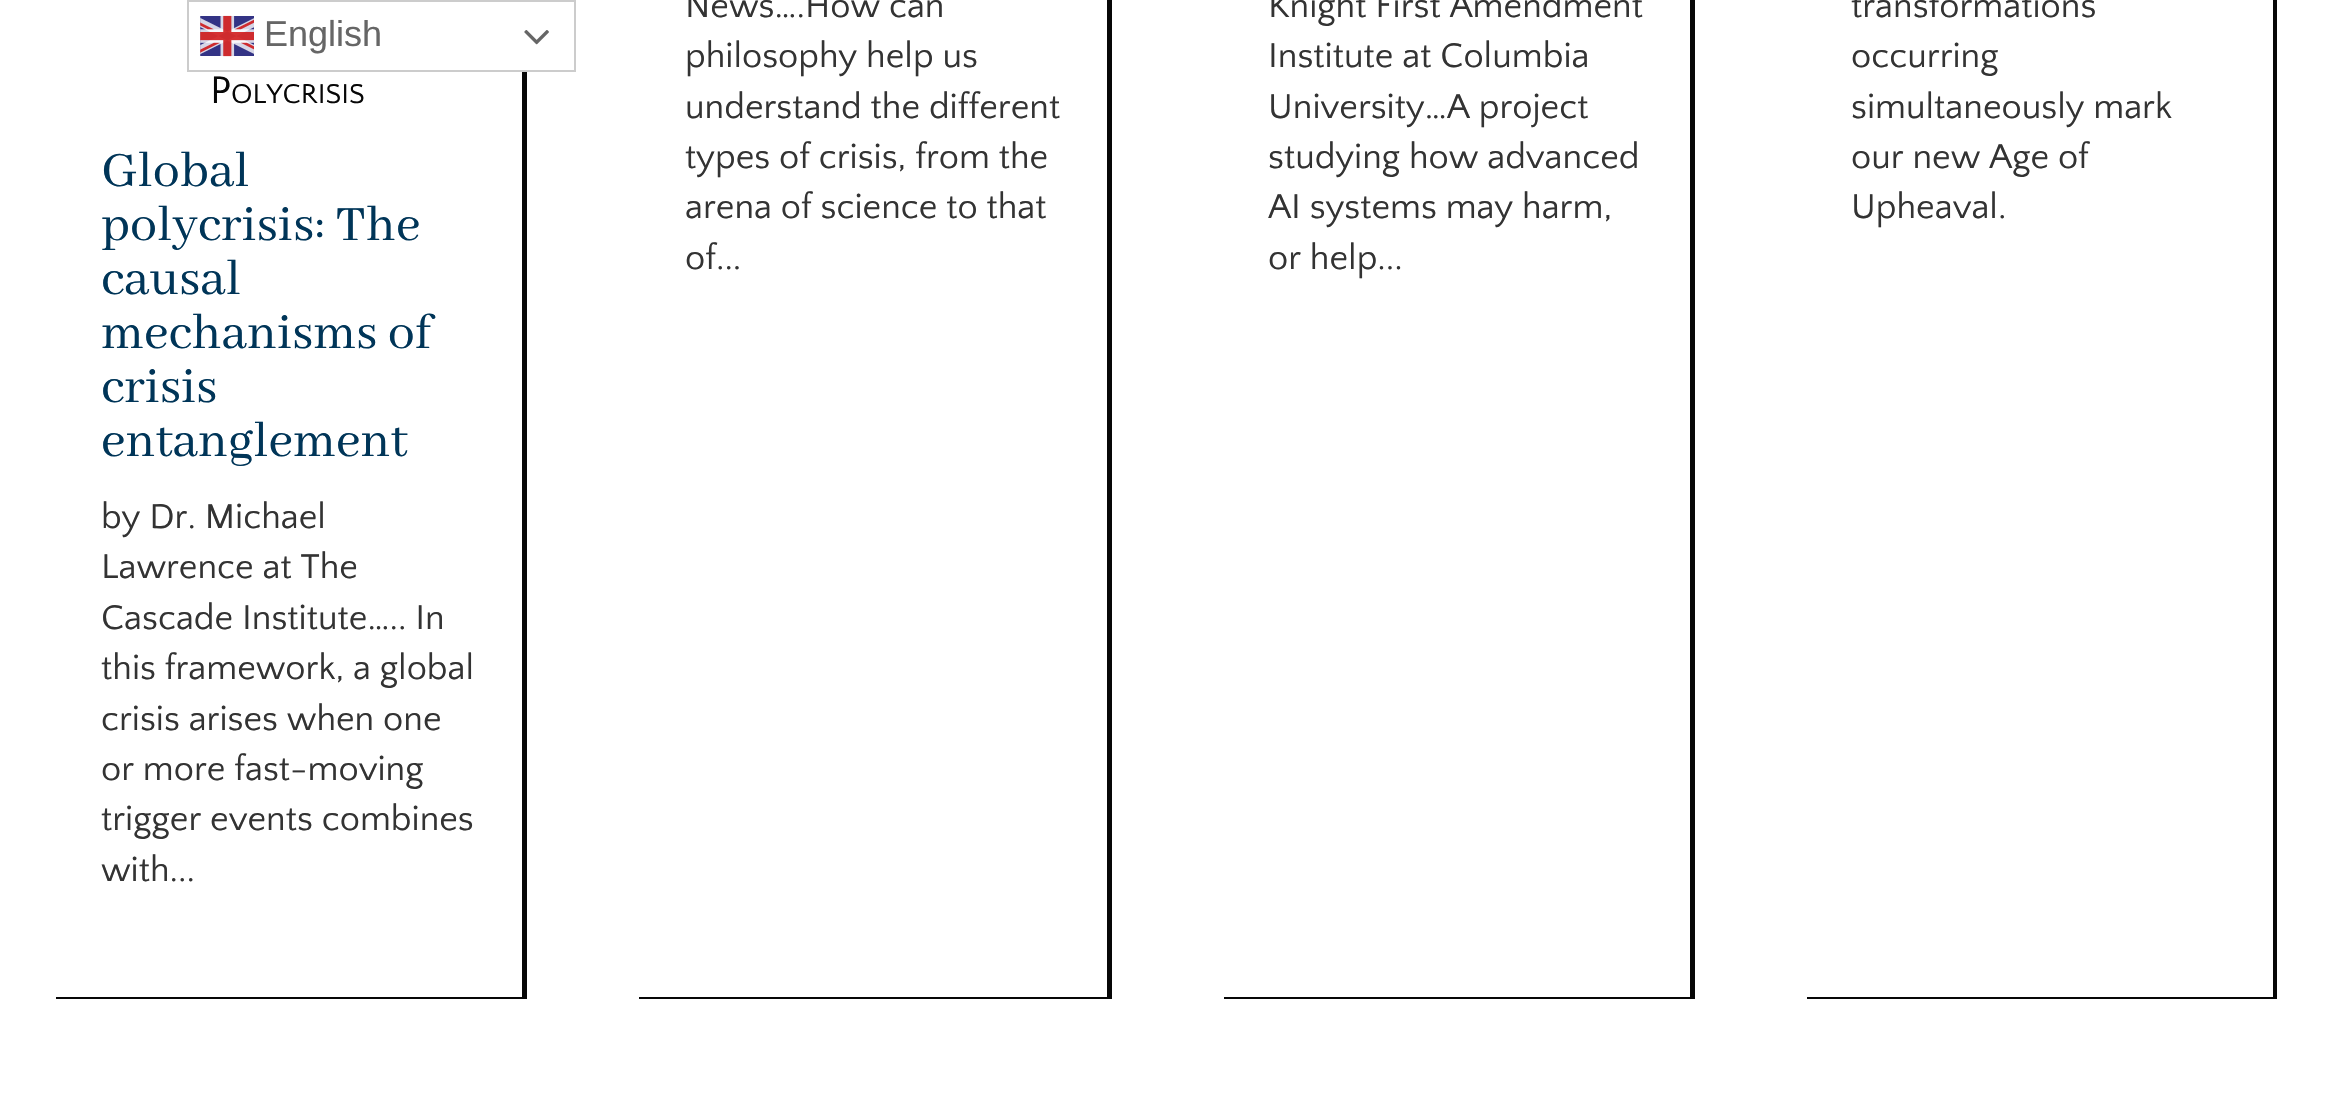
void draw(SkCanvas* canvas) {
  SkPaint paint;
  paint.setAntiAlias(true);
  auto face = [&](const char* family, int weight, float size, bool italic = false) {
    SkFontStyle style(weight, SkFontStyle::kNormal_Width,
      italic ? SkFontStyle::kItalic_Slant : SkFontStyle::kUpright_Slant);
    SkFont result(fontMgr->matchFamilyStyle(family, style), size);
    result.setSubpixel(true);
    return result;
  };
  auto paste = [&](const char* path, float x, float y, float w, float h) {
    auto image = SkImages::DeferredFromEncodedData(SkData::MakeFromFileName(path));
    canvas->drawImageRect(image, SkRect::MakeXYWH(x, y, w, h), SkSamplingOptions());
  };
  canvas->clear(0xffffffff);
  {
    const struct { float x, y, w, h; SkColor color; } items[] = {
      {522, 72, 5, 927, 0xff070707},
      {56, 997, 471, 2, 0xff070707},
      {1107, 0, 5, 999, 0xff070707},
      {639, 997, 473, 2, 0xff070707},
      {1690, 0, 5, 999, 0xff070707},
      {1224, 997, 470, 2, 0xff070707},
      {2273, 0, 4, 999, 0xff070707},
      {1807, 997, 470, 2, 0xff070707},
    };
    for (auto [x, y, w, h, color] : items) {
      paint.setColor(color);
      canvas->drawRect(SkRect::MakeXYWH(x, y, w, h), paint);
    }
  }
  paint.setStroke(true);
  paint.setStrokeWidth(2);
  paint.setColor(0xffcccccc);
  canvas->drawRect(SkRect::MakeXYWH(188, 1, 387, 70), paint);
  paste("img/1.png", 200, 15, 54, 42);
  paste("img/2.png", 524, 30, 25, 15);
  auto f0 = face("Quattrocento Sans", 400, 40);
  paint.setStroke(false);
  paint.setColor(0xff070707);
  canvas->drawString("P", 210, 103, f0, paint);
  auto f1 = face("Quattrocento Sans", 400, 28.5f);
  canvas->drawString("OLYCRISIS", 231, 103, f1, paint);
  auto f2 = face("Abhaya Libre", 400, 54);
  paint.setColor(0xff003558);
  {
    const struct { const char* s; float x, y; } items[] = {
      {"Global", 101, 186},
      {"polycrisis: The", 101, 240},
      {"causal", 101, 294},
      {"mechanisms of", 101, 348},
      {"crisis", 101, 402},
      {"entanglement", 101, 456},
    };
    for (auto [s, x, y] : items) {
      canvas->drawString(s, x, y, f2, paint);
    }
  }
  auto f3 = face("Quattrocento Sans", 400, 36);
  paint.setColor(0xff333333);
  {
    const struct { const char* s; float x, y; } items[] = {
      {"by Dr. Michael", 101, 528},
      {"Lawrence at The", 101, 578},
      {"Cascade Institute….. In", 101, 629},
      {"this framework, a global", 101, 679},
      {"crisis arises when one", 101, 730},
      {"or more fast-moving", 101, 780},
      {"trigger events combines", 101, 830},
      {"with...", 101, 881},
      {"News….How can", 685, 17},
      {"philosophy help us", 685, 67},
      {"understand the different", 685, 118},
      {"types of crisis, from the", 685, 168},
      {"arena of science to that", 685, 218},
      {"of...", 685, 269},
      {"Knight First Amendment", 1268, 17},
      {"Institute at Columbia", 1268, 67},
      {"University…A project", 1268, 118},
      {"studying how advanced", 1268, 168},
      {"AI systems may harm,", 1268, 218},
      {"or help...", 1268, 269},
      {"transformations", 1851, 17},
      {"occurring", 1851, 67},
      {"simultaneously mark", 1851, 118},
      {"our new Age of", 1851, 168},
      {"Upheaval.", 1851, 218},
    };
    for (auto [s, x, y] : items) {
      canvas->drawString(s, x, y, f3, paint);
    }
  }
  auto f4 = face("Liberation Sans", 400, 36);
  paint.setColor(0xff666666);
  canvas->drawString("English", 264, 46, f4, paint);
}
